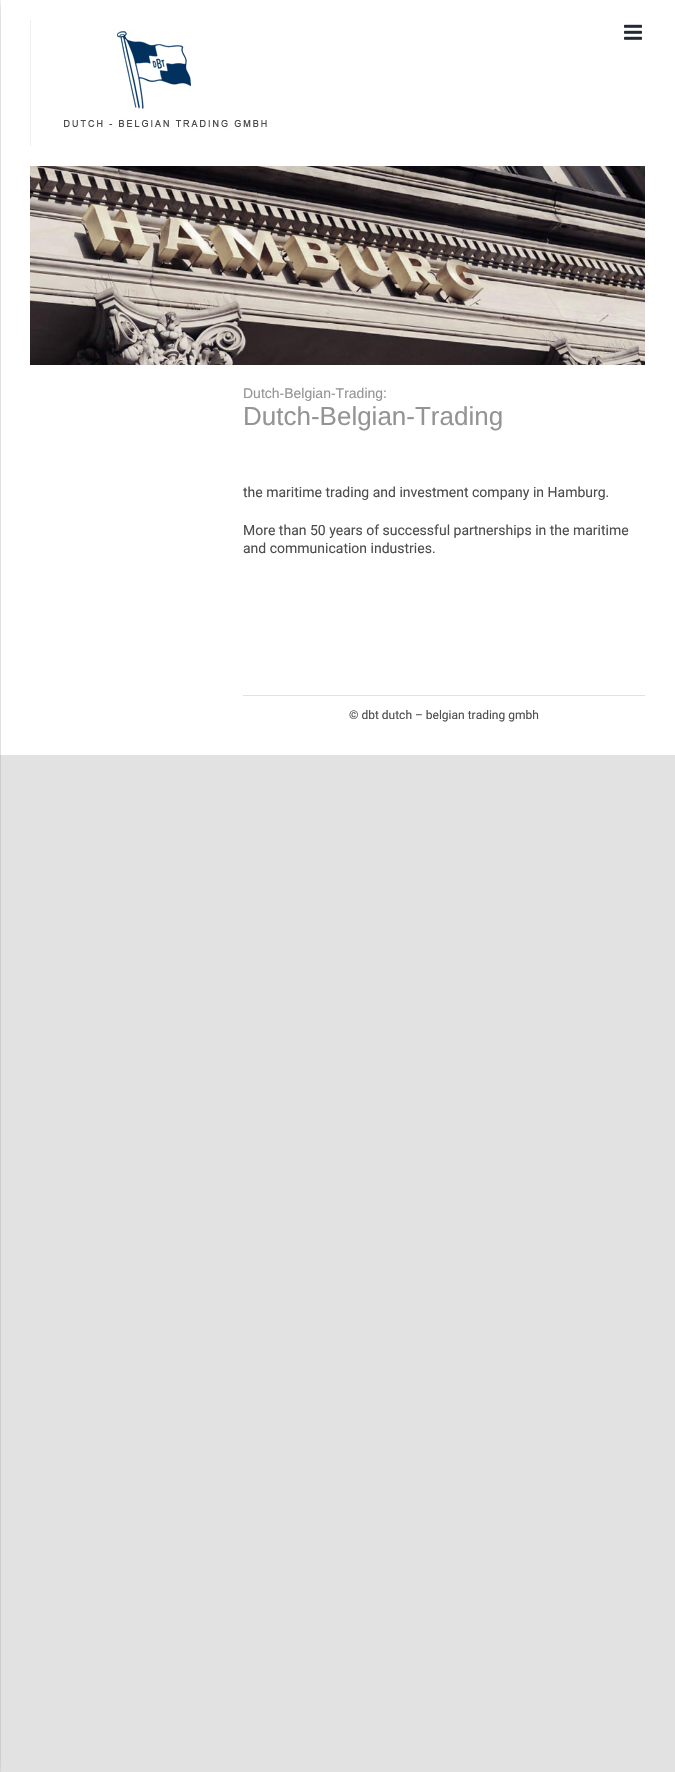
void draw(SkCanvas* canvas) {
  SkPaint paint;
  paint.setAntiAlias(true);
  auto face = [&](const char* family, int weight, float size, bool italic = false) {
    SkFontStyle style(weight, SkFontStyle::kNormal_Width,
      italic ? SkFontStyle::kItalic_Slant : SkFontStyle::kUpright_Slant);
    SkFont result(fontMgr->matchFamilyStyle(family, style), size);
    result.setSubpixel(true);
    return result;
  };
  auto paste = [&](const char* path, float x, float y, float w, float h) {
    auto image = SkImages::DeferredFromEncodedData(SkData::MakeFromFileName(path));
    canvas->drawImageRect(image, SkRect::MakeXYWH(x, y, w, h), SkSamplingOptions());
  };
  canvas->clear(0xffe2e2e2);
  paint.setColor(0xffffffff);
  canvas->drawRect(SkRect::MakeXYWH(0, 0, 675, 755), paint);
  paste("img/1.png", 30, 20, 237, 126);
  paste("img/2.png", 624, 24, 18, 16);
  paste("img/3.png", 30, 166, 615, 199);
  paint.setColor(0xffe2e2e2);
  canvas->drawRect(SkRect::MakeXYWH(243, 695, 402, 1), paint);
  canvas->save();
  canvas->clipRect(SkRect::MakeXYWH(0, 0, 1, 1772));
  paint.setColor(0xbfaaaaaa);
  paint.setMaskFilter(SkMaskFilter::MakeBlur(kNormal_SkBlurStyle, 7.5f));
  canvas->drawRect(SkRect::MakeXYWH(1, 0, 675, 1772), paint);
  paint.setMaskFilter(nullptr);
  canvas->restore();
  auto f0 = face("Liberation Sans", 400, 14);
  paint.setColor(0xff949494);
  canvas->drawString("Dutch-Belgian-Trading:", 243, 398, f0, paint);
  auto f1 = face("Liberation Sans", 400, 26);
  canvas->drawString("Dutch-Belgian-Trading", 243, 425, f1, paint);
  auto f2 = face("Roboto", 400, 14);
  paint.setColor(0xff4d4d4d);
  {
    const struct { const char* s; float x, y; } items[] = {
      {"the maritime trading and investment company in Hamburg.", 243, 497},
      {"More than 50 years of successful partnerships in the maritime", 243, 535},
      {"and communication industries.", 243, 553},
    };
    for (auto [s, x, y] : items) {
      canvas->drawString(s, x, y, f2, paint);
    }
  }
  auto f3 = face("Roboto", 400, 12);
  canvas->drawString("© dbt dutch – belgian trading gmbh", 349, 719, f3, paint);
}
